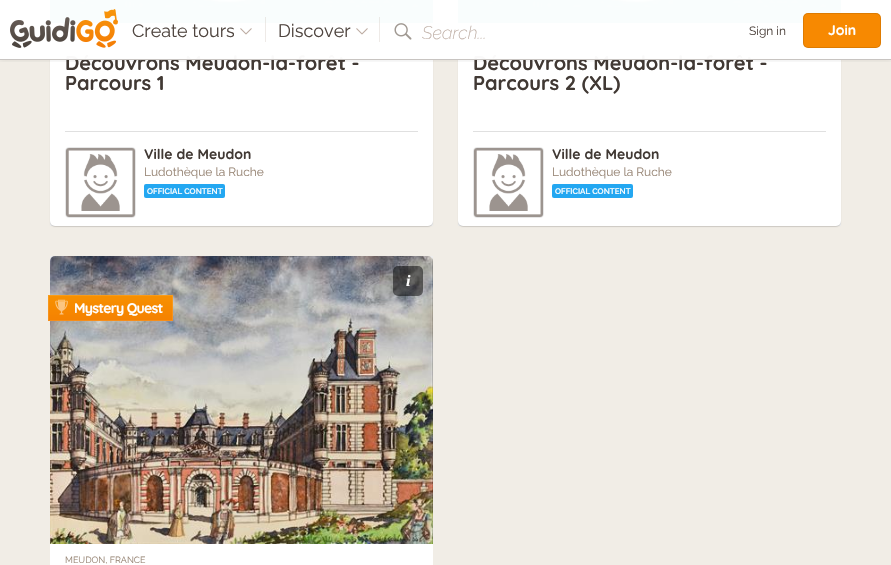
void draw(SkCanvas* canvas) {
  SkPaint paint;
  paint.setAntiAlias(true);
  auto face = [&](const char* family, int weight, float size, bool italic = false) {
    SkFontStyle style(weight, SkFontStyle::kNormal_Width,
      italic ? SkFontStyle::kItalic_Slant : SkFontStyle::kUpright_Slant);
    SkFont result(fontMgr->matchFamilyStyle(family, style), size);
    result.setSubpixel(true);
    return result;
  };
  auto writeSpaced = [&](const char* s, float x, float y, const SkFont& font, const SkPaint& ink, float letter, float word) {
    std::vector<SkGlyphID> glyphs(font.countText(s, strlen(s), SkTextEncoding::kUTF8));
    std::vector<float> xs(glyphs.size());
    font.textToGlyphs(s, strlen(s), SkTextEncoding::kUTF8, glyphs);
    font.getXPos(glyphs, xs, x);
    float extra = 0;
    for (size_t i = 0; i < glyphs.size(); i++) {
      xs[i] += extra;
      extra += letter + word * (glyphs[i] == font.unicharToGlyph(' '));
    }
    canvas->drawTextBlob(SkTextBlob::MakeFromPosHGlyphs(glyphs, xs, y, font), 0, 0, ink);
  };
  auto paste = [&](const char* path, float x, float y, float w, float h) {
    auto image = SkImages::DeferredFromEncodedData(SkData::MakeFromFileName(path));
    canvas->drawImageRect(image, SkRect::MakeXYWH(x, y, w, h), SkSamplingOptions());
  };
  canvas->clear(0xfff1ede6);
  paint.setColor(0xffeeeeee);
  canvas->drawRect(SkRect::MakeXYWH(50, 221, 383, 5), paint);
  paint.setColor(0x26000000);
  paint.setMaskFilter(SkMaskFilter::MakeBlur(kNormal_SkBlurStyle, 0.5f));
  canvas->drawRoundRect(SkRect::MakeXYWH(50, -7, 383, 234), 5, 5, paint);
  paint.setMaskFilter(nullptr);
  paint.setColor(0xffffffff);
  canvas->drawRoundRect(SkRect::MakeXYWH(50, -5, 383, 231), 5, 5, paint);
  paste("img/4.png", 50, 0, 383, 23);
  paint.setColor(0xffeeeeee);
  canvas->drawRect(SkRect::MakeXYWH(458, 221, 383, 5), paint);
  paint.setColor(0x26000000);
  paint.setMaskFilter(SkMaskFilter::MakeBlur(kNormal_SkBlurStyle, 0.5f));
  canvas->drawRoundRect(SkRect::MakeXYWH(458, -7, 383, 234), 5, 5, paint);
  paint.setMaskFilter(nullptr);
  paint.setColor(0xffffffff);
  canvas->drawRoundRect(SkRect::MakeXYWH(458, -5, 383, 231), 5, 5, paint);
  paste("img/4.png", 458, 0, 383, 23);
  canvas->save();
  canvas->clipRect(SkRect::MakeXYWH(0, 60, 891, 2));
  paint.setColor(0x12000000);
  paint.setMaskFilter(SkMaskFilter::MakeBlur(kNormal_SkBlurStyle, 2.5f));
  canvas->drawRect(SkRect::MakeXYWH(0, 1, 891, 60), paint);
  paint.setMaskFilter(nullptr);
  canvas->restore();
  paint.setColor(0xffe0e0e0);
  canvas->drawRect(SkRect::MakeXYWH(65, 131, 353, 1), paint);
  paint.setStroke(true);
  paint.setStrokeWidth(1);
  paint.setColor(0xffe6e6e6);
  canvas->drawRoundRect(SkRect::MakeXYWH(65.5f, 147.5f, 70, 70), 3.5f, 3.5f, paint);
  paste("img/5.png", 66, 148, 69, 69);
  paint.setStroke(false);
  paint.setColor(0xff23a7f1);
  canvas->drawRoundRect(SkRect::MakeXYWH(144, 184, 81, 14), 2, 2, paint);
  paint.setColor(0xffe0e0e0);
  canvas->drawRect(SkRect::MakeXYWH(473, 131, 353, 1), paint);
  paint.setStroke(true);
  paint.setColor(0xffe6e6e6);
  canvas->drawRoundRect(SkRect::MakeXYWH(473.5f, 147.5f, 70, 70), 3.5f, 3.5f, paint);
  paste("img/6.png", 474, 148, 69, 69);
  paint.setStroke(false);
  paint.setColor(0xff23a7f1);
  canvas->drawRoundRect(SkRect::MakeXYWH(552, 184, 81, 14), 2, 2, paint);
  paint.setColor(0xffeeeeee);
  canvas->drawRect(SkRect::MakeXYWH(50, 256, 383, 5), paint);
  paint.setColor(0xffffffff);
  canvas->drawRoundRect(SkRect::MakeXYWH(50, 256, 383, 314), 5, 5, paint);
  paste("img/7.png", 50, 256, 383, 288);
  paint.setColor(0x80000000);
  canvas->drawRoundRect(SkRect::MakeXYWH(393, 266, 30, 30), 5, 5, paint);
  {
    const SkColor colors[] = {0xfff58101, 0xfff79101};
    const float stops[] = {0, 1};
    const SkPoint ends[] = {{111, 321}, {111, 295}};
    paint.setShader(SkGradientShader::MakeLinear(ends, colors, stops, 2, SkTileMode::kClamp));
    paint.setAlpha(255);
  }
  canvas->drawRect(SkRect::MakeXYWH(48, 295, 125, 26), paint);
  paint.setStroke(true);
  paint.setShader(nullptr);
  paint.setColor(0x1affffff);
  canvas->drawRect(SkRect::MakeXYWH(48.5f, 295.5f, 124, 25), paint);
  paste("img/8.png", 55, 299, 13, 16);
  auto f0 = face("Quicksand", 300, 20);
  paint.setStroke(false);
  paint.setColor(0xff413934);
  canvas->drawString("Découvrons Meudon-la-forêt -", 65, 70, f0, paint);
  canvas->drawString("Parcours 1", 65, 90, f0, paint);
  auto f1 = face("Quicksand", 300, 14);
  canvas->drawString("Ville de Meudon", 144, 159, f1, paint);
  auto f2 = face("Raleway", 400, 12);
  paint.setColor(0xff988676);
  canvas->drawString("Ludothèque la Ruche", 144, 176, f2, paint);
  auto f3 = face("Raleway", 600, 8);
  paint.setColor(0xffffffff);
  canvas->drawString("OFFICIAL CONTENT", 147, 194, f3, paint);
  paint.setColor(0xff413934);
  canvas->drawString("Découvrons Meudon-la-forêt -", 473, 70, f0, paint);
  paint.setColor(0xf7ffffff);
  canvas->drawRect(SkRect::MakeXYWH(0, 0, 891, 59), paint);
  paint.setColor(0xfff78901);
  canvas->drawRoundRect(SkRect::MakeXYWH(803, 13, 78, 35), 5, 5, paint);
  paint.setStroke(true);
  paint.setColor(0x1a000000);
  canvas->drawRoundRect(SkRect::MakeXYWH(803.5f, 13.5f, 77, 34), 4.5f, 4.5f, paint);
  paint.setStroke(false);
  paint.setColor(0xffffffff);
  canvas->drawString("Join", 828, 35, f1, paint);
  paint.setColor(0xff4f453f);
  canvas->drawString("Sign in", 749, 35, f2, paint);
  auto f4 = face("Raleway", 100, 18, true);
  paint.setColor(0xffbbaaa0);
  canvas->drawString("Search...", 422, 39, f4, paint);
  paste("img/3.png", 394, 23, 18, 17);
  paint.setColor(0x40bbaaa0);
  canvas->drawRect(SkRect::MakeXYWH(379, 17, 1, 25), paint);
  paste("img/2.png", 356, 28, 12, 7);
  auto f5 = face("Raleway", 400, 18);
  paint.setColor(0xff4f453f);
  canvas->drawString("Discover", 278, 37, f5, paint);
  paint.setColor(0x40bbaaa0);
  canvas->drawRect(SkRect::MakeXYWH(265, 17, 1, 25), paint);
  paste("img/2.png", 240, 28, 12, 7);
  paint.setColor(0xff4f453f);
  canvas->drawString("Create tours", 132, 37, f5, paint);
  paste("img/1.png", 10, 9, 108, 39);
  paint.setColor(0xffc8c4c1);
  canvas->drawRect(SkRect::MakeXYWH(0, 59, 891, 1), paint);
  paint.setColor(0xff413934);
  canvas->drawString("Parcours 2 (XL)", 473, 90, f0, paint);
  canvas->drawString("Ville de Meudon", 552, 159, f1, paint);
  paint.setColor(0xff988676);
  canvas->drawString("Ludothèque la Ruche", 552, 176, f2, paint);
  paint.setColor(0xffffffff);
  canvas->drawString("OFFICIAL CONTENT", 555, 194, f3, paint);
  auto f6 = face("Liberation Serif", 700, 16, true);
  canvas->drawString("i", 406, 286, f6, paint);
  writeSpaced("Mystery Quest", 74, 313, f1, paint, -0.75f, 0);
  auto f7 = face("Raleway", 400, 9);
  paint.setColor(0xff988676);
  canvas->drawString("MEUDON, FRANCE", 65, 563, f7, paint);
}
